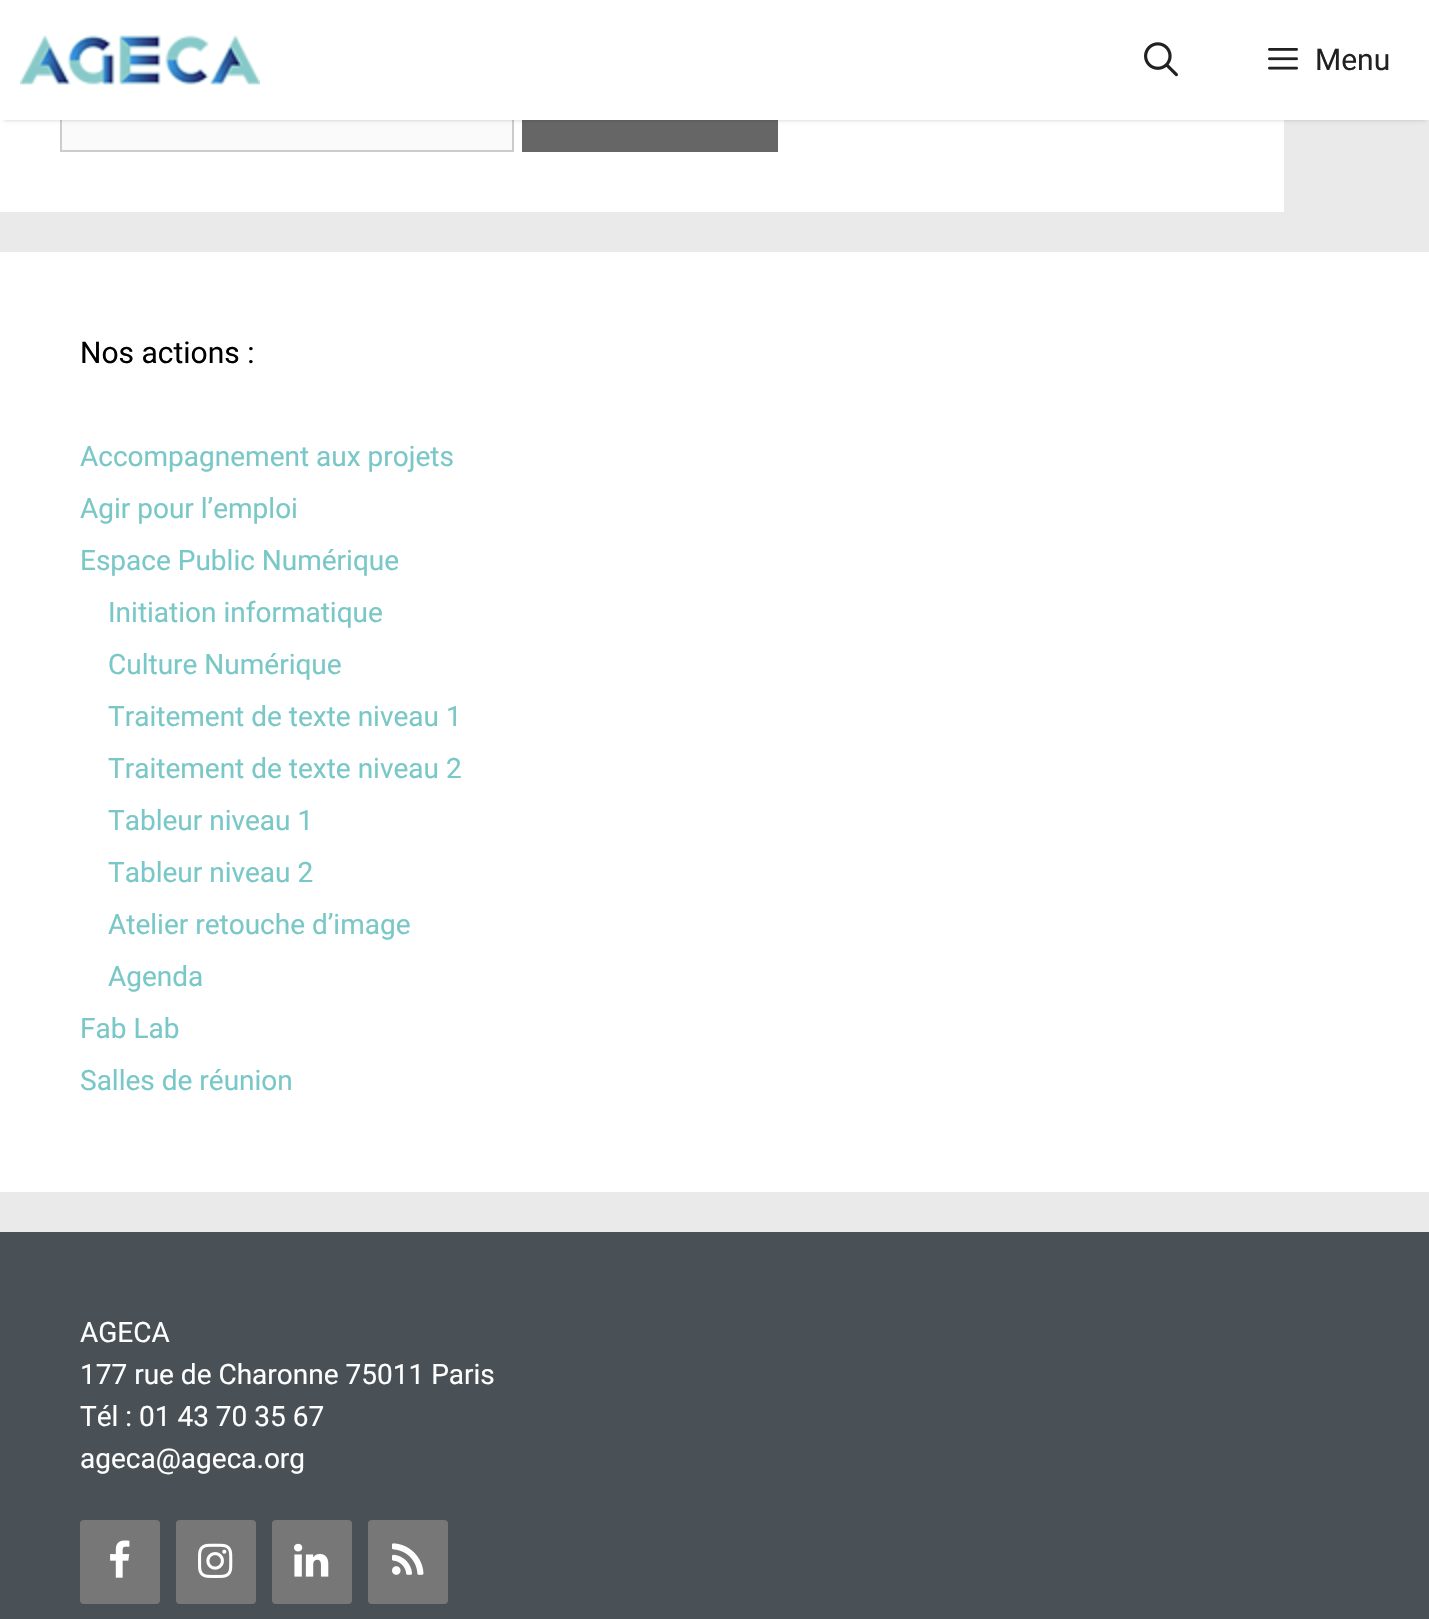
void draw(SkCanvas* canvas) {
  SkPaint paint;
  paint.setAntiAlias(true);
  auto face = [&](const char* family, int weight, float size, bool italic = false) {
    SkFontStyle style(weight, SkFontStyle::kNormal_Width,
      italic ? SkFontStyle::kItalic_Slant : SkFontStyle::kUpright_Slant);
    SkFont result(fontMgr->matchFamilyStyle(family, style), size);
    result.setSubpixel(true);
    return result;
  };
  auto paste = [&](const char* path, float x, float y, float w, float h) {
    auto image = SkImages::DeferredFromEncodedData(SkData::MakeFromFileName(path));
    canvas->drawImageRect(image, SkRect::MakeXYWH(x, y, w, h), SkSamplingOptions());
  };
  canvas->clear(0xffeaeaea);
  paint.setColor(0xffffffff);
  canvas->drawRect(SkRect::MakeXYWH(0, 120, 1284, 92), paint);
  paint.setColor(0xfffafafa);
  canvas->drawRect(SkRect::MakeXYWH(62, 120, 450, 30), paint);
  paint.setStroke(true);
  paint.setStrokeWidth(2);
  paint.setColor(0xffcccccc);
  canvas->drawRect(SkRect::MakeXYWH(61, 57, 452, 94), paint);
  paint.setStroke(false);
  paint.setColor(0xff666666);
  canvas->drawRect(SkRect::MakeXYWH(522, 120, 256, 32), paint);
  paint.setColor(0x33000000);
  paint.setMaskFilter(SkMaskFilter::MakeBlur(kNormal_SkBlurStyle, 2));
  canvas->drawRect(SkRect::MakeXYWH(4, 8, 1422, 112), paint);
  paint.setMaskFilter(nullptr);
  paint.setColor(0xffffffff);
  canvas->drawRect(SkRect::MakeXYWH(0, 0, 1429, 120), paint);
  paste("img/1.png", 20, 35, 240, 50);
  paste("img/2.png", 1144, 42, 34, 35);
  paste("img/3.png", 1268, 48, 30, 22);
  canvas->drawRect(SkRect::MakeXYWH(0, 252, 1429, 940), paint);
  paint.setColor(0xff495157);
  canvas->drawRect(SkRect::MakeXYWH(0, 1232, 1429, 387), paint);
  paint.setColor(0xff777777);
  canvas->drawRoundRect(SkRect::MakeXYWH(80, 1520, 80, 84), 4, 4, paint);
  paste("img/4.png", 110, 1540, 20, 38);
  canvas->drawRoundRect(SkRect::MakeXYWH(176, 1520, 80, 84), 4, 4, paint);
  paste("img/5.png", 198, 1543, 35, 35);
  canvas->drawRoundRect(SkRect::MakeXYWH(272, 1520, 80, 84), 4, 4, paint);
  paste("img/6.png", 294, 1543, 35, 34);
  canvas->drawRoundRect(SkRect::MakeXYWH(368, 1520, 80, 84), 4, 4, paint);
  paste("img/7.png", 392, 1543, 32, 32);
  auto f0 = face("Roboto", 400, 30);
  paint.setColor(0xff212121);
  canvas->drawString("Menu", 1315, 70, f0, paint);
  paint.setColor(0xff000000);
  canvas->drawString("Nos actions :", 80, 363, f0, paint);
  auto f1 = face("Roboto", 400, 28);
  paint.setColor(0xff79c8c7);
  {
    const struct { const char* s; float x, y; } items[] = {
      {"Accompagnement aux projets", 80, 466},
      {"Agir pour l’emploi", 80, 518},
      {"Espace Public Numérique", 80, 570},
      {"Initiation informatique", 108, 622},
      {"Culture Numérique", 108, 674},
      {"Traitement de texte niveau 1", 108, 726},
      {"Traitement de texte niveau 2", 108, 778},
      {"Tableur niveau 1", 108, 830},
      {"Tableur niveau 2", 108, 882},
      {"Atelier retouche d’image", 108, 934},
      {"Agenda", 108, 986},
      {"Fab Lab", 80, 1038},
      {"Salles de réunion", 80, 1090},
    };
    for (auto [s, x, y] : items) {
      canvas->drawString(s, x, y, f1, paint);
    }
  }
  paint.setColor(0xffffffff);
  {
    const struct { const char* s; float x, y; } items[] = {
      {"AGECA", 80, 1342},
      {"177 rue de Charonne 75011 Paris", 80, 1384},
      {"Tél : 01 43 70 35 67", 80, 1426},
      {"ageca@ageca.org", 80, 1468},
    };
    for (auto [s, x, y] : items) {
      canvas->drawString(s, x, y, f1, paint);
    }
  }
}
